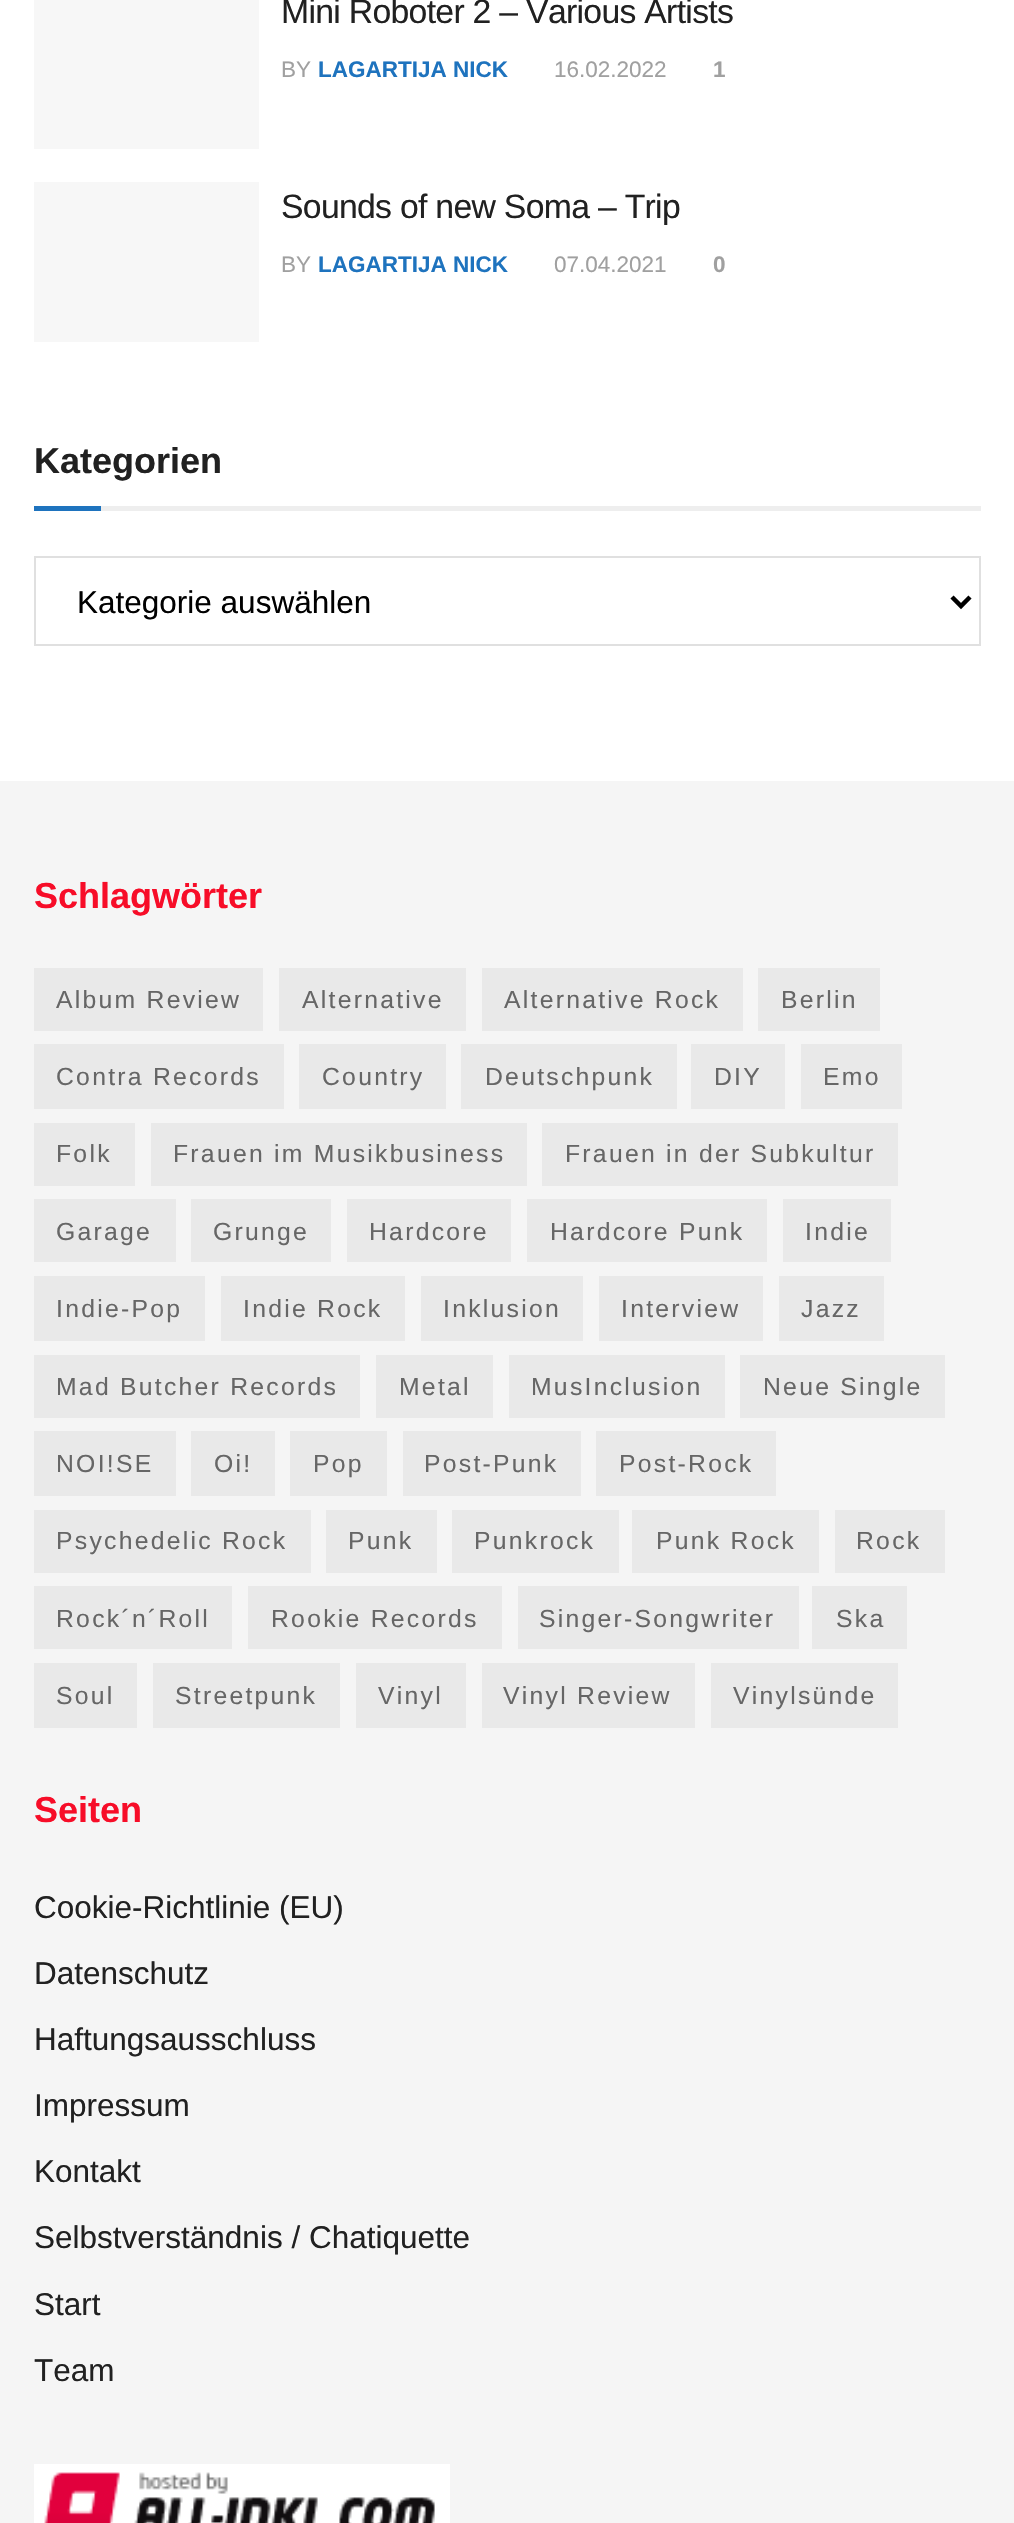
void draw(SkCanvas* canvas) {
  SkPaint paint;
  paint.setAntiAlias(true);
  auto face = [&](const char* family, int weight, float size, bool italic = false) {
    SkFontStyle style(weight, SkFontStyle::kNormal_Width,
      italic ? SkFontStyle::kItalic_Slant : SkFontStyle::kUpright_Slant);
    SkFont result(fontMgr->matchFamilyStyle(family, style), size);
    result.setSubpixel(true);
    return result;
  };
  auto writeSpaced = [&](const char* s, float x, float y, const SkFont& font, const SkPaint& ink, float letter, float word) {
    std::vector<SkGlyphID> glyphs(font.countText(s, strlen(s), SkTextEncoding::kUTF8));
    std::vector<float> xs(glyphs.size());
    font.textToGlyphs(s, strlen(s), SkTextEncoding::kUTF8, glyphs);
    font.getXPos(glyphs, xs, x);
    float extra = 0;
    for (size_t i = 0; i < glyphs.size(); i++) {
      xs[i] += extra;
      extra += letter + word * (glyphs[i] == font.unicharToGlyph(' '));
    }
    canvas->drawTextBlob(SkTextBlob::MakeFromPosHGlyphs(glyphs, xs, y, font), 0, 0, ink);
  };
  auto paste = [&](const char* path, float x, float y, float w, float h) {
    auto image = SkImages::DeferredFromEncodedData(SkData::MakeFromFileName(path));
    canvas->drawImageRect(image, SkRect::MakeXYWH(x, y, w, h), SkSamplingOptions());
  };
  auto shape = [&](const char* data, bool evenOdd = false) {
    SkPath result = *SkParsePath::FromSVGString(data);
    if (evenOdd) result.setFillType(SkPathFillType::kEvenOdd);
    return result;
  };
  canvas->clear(0xffffffff);
  {
    const struct { float x, y, w, h; SkColor color; } items[] = {
      {34, 0, 225, 149, 0xfff7f7f7},
      {34, 182, 225, 160, 0xfff7f7f7},
      {101, 506, 880, 5, 0xffeeeeee},
      {34, 506, 67, 5, 0xff1e73be},
    };
    for (auto [x, y, w, h, color] : items) {
      paint.setColor(color);
      canvas->drawRect(SkRect::MakeXYWH(x, y, w, h), paint);
    }
  }
  paint.setStroke(true);
  paint.setStrokeWidth(2);
  paint.setColor(0xffe0e0e0);
  canvas->drawRect(SkRect::MakeXYWH(35, 557, 945, 88), paint);
  paint.setStrokeWidth(4.5f);
  paint.setColor(0xff000000);
  canvas->drawPath(shape("M952 597L961 606L970 597"), paint);
  paint.setStroke(false);
  {
    const struct { float x, y, w, h; SkColor color; } items[] = {
      {0, 781, 1014, 1742, 0xfff5f5f5},
      {34, 968, 229, 63, 0xffe9e9e9},
      {279, 968, 187, 63, 0xffe9e9e9},
      {482, 968, 261, 63, 0xffe9e9e9},
      {758, 968, 122, 63, 0xffe9e9e9},
      {34, 1044, 250, 65, 0xffe9e9e9},
      {299, 1044, 147, 65, 0xffe9e9e9},
      {461, 1044, 216, 65, 0xffe9e9e9},
      {691, 1044, 94, 65, 0xffe9e9e9},
      {801, 1044, 101, 65, 0xffe9e9e9},
      {34, 1123, 101, 63, 0xffe9e9e9},
      {151, 1123, 376, 63, 0xffe9e9e9},
      {542, 1123, 356, 63, 0xffe9e9e9},
      {34, 1199, 142, 63, 0xffe9e9e9},
      {191, 1199, 140, 63, 0xffe9e9e9},
      {347, 1199, 164, 63, 0xffe9e9e9},
      {527, 1199, 240, 63, 0xffe9e9e9},
      {783, 1199, 108, 63, 0xffe9e9e9},
      {34, 1276, 171, 65, 0xffe9e9e9},
      {221, 1276, 184, 65, 0xffe9e9e9},
      {421, 1276, 162, 65, 0xffe9e9e9},
      {599, 1276, 164, 65, 0xffe9e9e9},
      {779, 1276, 105, 65, 0xffe9e9e9},
      {34, 1355, 326, 63, 0xffe9e9e9},
      {376, 1355, 117, 63, 0xffe9e9e9},
      {509, 1355, 216, 63, 0xffe9e9e9},
      {740, 1355, 205, 63, 0xffe9e9e9},
      {34, 1431, 142, 65, 0xffe9e9e9},
      {191, 1431, 84, 65, 0xffe9e9e9},
      {290, 1431, 97, 65, 0xffe9e9e9},
      {403, 1431, 178, 65, 0xffe9e9e9},
      {596, 1431, 180, 65, 0xffe9e9e9},
      {34, 1510, 277, 63, 0xffe9e9e9},
      {326, 1510, 111, 63, 0xffe9e9e9},
      {452, 1510, 167, 63, 0xffe9e9e9},
      {632, 1510, 187, 63, 0xffe9e9e9},
      {835, 1510, 110, 63, 0xffe9e9e9},
      {34, 1586, 198, 63, 0xffe9e9e9},
      {248, 1586, 254, 63, 0xffe9e9e9},
      {518, 1586, 281, 63, 0xffe9e9e9},
      {812, 1586, 95, 63, 0xffe9e9e9},
      {34, 1663, 103, 65, 0xffe9e9e9},
      {153, 1663, 187, 65, 0xffe9e9e9},
      {356, 1663, 110, 65, 0xffe9e9e9},
      {482, 1663, 213, 65, 0xffe9e9e9},
      {711, 1663, 187, 65, 0xffe9e9e9},
    };
    for (auto [x, y, w, h, color] : items) {
      paint.setColor(color);
      canvas->drawRect(SkRect::MakeXYWH(x, y, w, h), paint);
    }
  }
  paste("img/1.png", 34, 2464, 416, 59);
  auto f0 = face("Liberation Sans", 400, 33.75f);
  paint.setColor(0xff212121);
  writeSpaced("Mini Roboter 2 – Various Artists", 281, 23, f0, paint, -0.7f, 0);
  auto f1 = face("Liberation Sans", 400, 22.5f);
  paint.setColor(0xffa0a0a0);
  canvas->drawString("BY", 281, 77, f1, paint);
  auto f2 = face("Liberation Sans", 700, 22.5f);
  paint.setColor(0xff1e73be);
  canvas->drawString("LAGARTIJA NICK", 318, 77, f2, paint);
  paint.setColor(0xffa0a0a0);
  canvas->drawString("16.02.2022", 554, 77, f1, paint);
  canvas->drawString("1", 713, 77, f2, paint);
  paint.setColor(0xff212121);
  writeSpaced("Sounds of new Soma – Trip", 281, 218, f0, paint, -0.7f, 0);
  paint.setColor(0xffa0a0a0);
  canvas->drawString("BY", 281, 272, f1, paint);
  paint.setColor(0xff1e73be);
  canvas->drawString("LAGARTIJA NICK", 318, 272, f2, paint);
  paint.setColor(0xffa0a0a0);
  canvas->drawString("07.04.2021", 554, 272, f1, paint);
  canvas->drawString("0", 713, 272, f2, paint);
  auto f3 = face("Liberation Sans", 700, 36);
  paint.setColor(0xff212121);
  canvas->drawString("Kategorien", 34, 473, f3, paint);
  auto f4 = face("Liberation Sans", 400, 31.5f);
  paint.setColor(0xff000000);
  canvas->drawString("Kategorie auswählen", 77, 613, f4, paint);
  paint.setColor(0xfff70d28);
  canvas->drawString("Schlagwörter", 34, 908, f3, paint);
  auto f5 = face("Liberation Sans", 400, 24.75f);
  paint.setColor(0xff666666);
  {
    const struct { const char* s; float x, y; } items[] = {
      {"Album Review", 56, 1008},
      {"Alternative", 302, 1008},
      {"Alternative Rock", 504, 1008},
      {"Berlin", 781, 1008},
      {"Contra Records", 56, 1085},
      {"Country", 322, 1085},
      {"Deutschpunk", 485, 1085},
      {"DIY", 714, 1085},
      {"Emo", 823, 1085},
      {"Folk", 56, 1162},
      {"Frauen im Musikbusiness", 173, 1162},
      {"Frauen in der Subkultur", 565, 1162},
      {"Garage", 56, 1240},
      {"Grunge", 213, 1240},
      {"Hardcore", 369, 1240},
      {"Hardcore Punk", 550, 1240},
      {"Indie", 805, 1240},
      {"Indie-Pop", 56, 1317},
      {"Indie Rock", 243, 1317},
      {"Inklusion", 443, 1317},
      {"Interview", 621, 1317},
      {"Jazz", 801, 1317},
      {"Mad Butcher Records", 56, 1395},
      {"Metal", 399, 1395},
      {"MusInclusion", 531, 1395},
      {"Neue Single", 763, 1395},
      {"NOI!SE", 56, 1472},
      {"Oi!", 214, 1472},
      {"Pop", 313, 1472},
      {"Post-Punk", 424, 1472},
      {"Post-Rock", 619, 1472},
      {"Psychedelic Rock", 56, 1549},
      {"Punk", 348, 1549},
      {"Punkrock", 474, 1549},
      {"Punk Rock", 656, 1549},
      {"Rock", 856, 1549},
      {"Rock´n´Roll", 56, 1627},
      {"Rookie Records", 271, 1627},
      {"Singer-Songwriter", 539, 1627},
      {"Ska", 836, 1627},
      {"Soul", 56, 1704},
      {"Streetpunk", 175, 1704},
      {"Vinyl", 378, 1704},
      {"Vinyl Review", 503, 1704},
      {"Vinylsünde", 733, 1704},
    };
    for (auto [s, x, y] : items) {
      writeSpaced(s, x, y, f5, paint, 2.25f, 0);
    }
  }
  paint.setColor(0xfff70d28);
  canvas->drawString("Seiten", 34, 1822, f3, paint);
  paint.setColor(0xff212121);
  {
    const struct { const char* s; float x, y; } items[] = {
      {"Cookie-Richtlinie (EU)", 34, 1918},
      {"Datenschutz", 34, 1984},
      {"Haftungsausschluss", 34, 2050},
      {"Impressum", 34, 2116},
      {"Kontakt", 34, 2182},
      {"Selbstverständnis / Chatiquette", 34, 2248},
      {"Start", 34, 2315},
      {"Team", 34, 2381},
    };
    for (auto [s, x, y] : items) {
      canvas->drawString(s, x, y, f4, paint);
    }
  }
}
